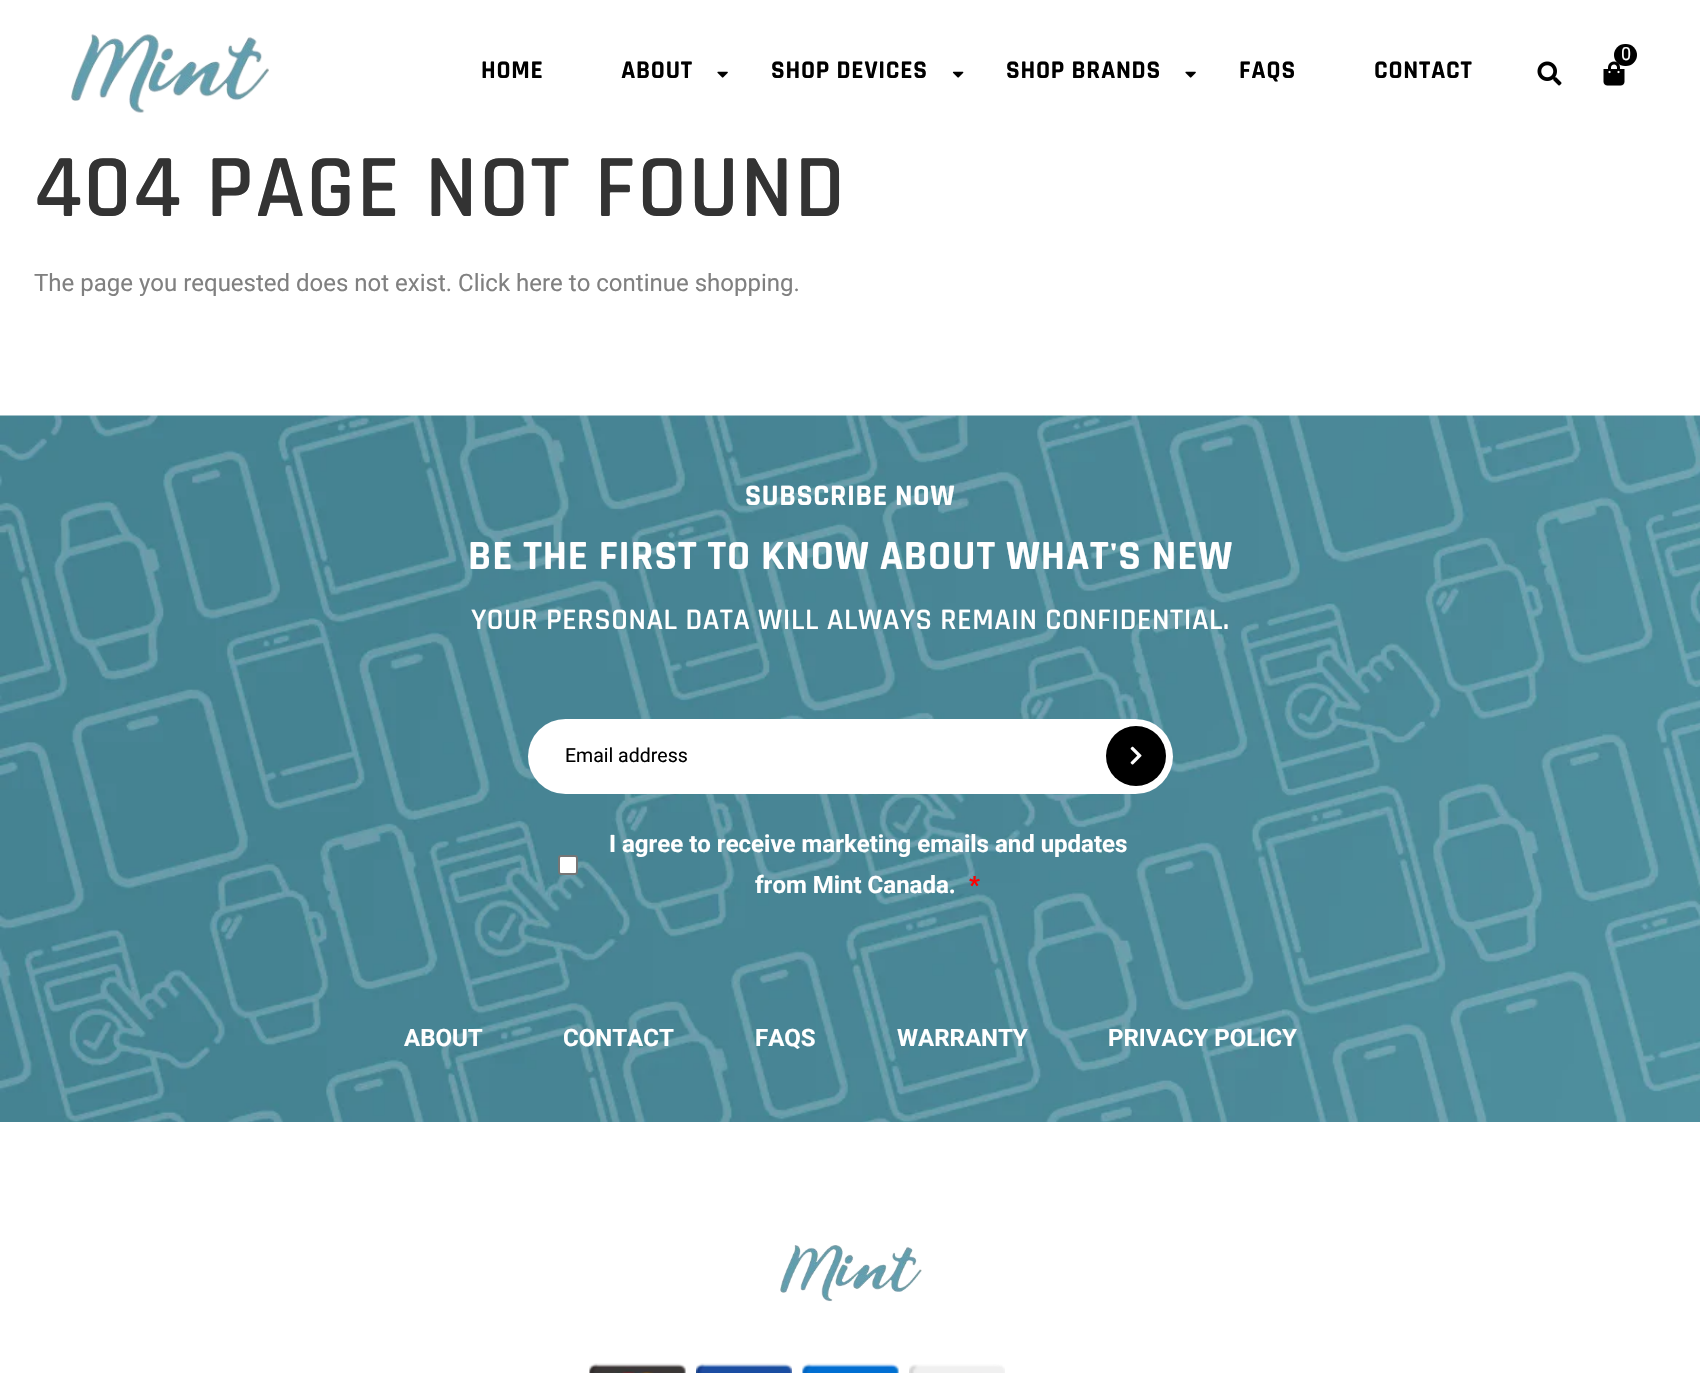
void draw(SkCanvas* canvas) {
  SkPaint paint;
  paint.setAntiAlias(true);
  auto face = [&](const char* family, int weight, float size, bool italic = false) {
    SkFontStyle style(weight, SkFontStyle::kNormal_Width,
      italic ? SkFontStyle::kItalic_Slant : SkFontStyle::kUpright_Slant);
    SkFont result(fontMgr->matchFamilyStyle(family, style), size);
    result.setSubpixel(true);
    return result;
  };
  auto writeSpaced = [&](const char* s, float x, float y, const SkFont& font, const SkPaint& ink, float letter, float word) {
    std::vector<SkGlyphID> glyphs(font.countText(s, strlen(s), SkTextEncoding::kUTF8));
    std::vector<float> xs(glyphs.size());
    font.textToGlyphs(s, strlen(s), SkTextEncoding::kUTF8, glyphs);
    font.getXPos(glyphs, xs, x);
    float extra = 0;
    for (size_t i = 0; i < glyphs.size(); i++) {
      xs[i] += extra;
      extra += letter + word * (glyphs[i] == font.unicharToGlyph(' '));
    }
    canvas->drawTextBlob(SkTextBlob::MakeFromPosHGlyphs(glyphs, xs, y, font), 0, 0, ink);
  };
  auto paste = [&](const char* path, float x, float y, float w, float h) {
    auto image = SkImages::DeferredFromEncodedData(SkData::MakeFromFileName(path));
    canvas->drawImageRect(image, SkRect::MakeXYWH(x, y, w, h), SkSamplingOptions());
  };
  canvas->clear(0xffffffff);
  paste("img/1.png", 71, 34, 198, 79);
  paste("img/2.png", 1603, 61, 22, 25);
  paint.setColor(0xff000000);
  canvas->drawRoundRect(SkRect::MakeXYWH(1614, 44, 23, 22), 11, 11, paint);
  paste("img/3.png", 1537, 61, 25, 25);
  paste("img/4.png", 717, 71, 11, 7);
  paste("img/5.png", 952, 71, 12, 7);
  paste("img/4.png", 1185, 71, 11, 7);
  paste("img/6.png", 0, 415, 1700, 707);
  paint.setColor(0xffffffff);
  canvas->drawRoundRect(SkRect::MakeXYWH(528, 719, 645, 75), 37.5f, 37.5f, paint);
  paint.setColor(0xff000000);
  canvas->drawCircle(1136, 756, 30, paint);
  paste("img/7.png", 1130, 746, 12, 19);
  paint.setColor(0xffffffff);
  canvas->drawRoundRect(SkRect::MakeXYWH(559, 856, 18, 18), 2, 2, paint);
  paint.setStroke(true);
  paint.setStrokeWidth(2);
  paint.setColor(0xff767676);
  canvas->drawRoundRect(SkRect::MakeXYWH(559, 856, 18, 18), 2, 2, paint);
  paste("img/8.png", 780, 1245, 142, 57);
  paste("img/9.png", 589, 1363, 97, 10);
  paste("img/10.png", 696, 1363, 96, 10);
  paste("img/11.png", 802, 1363, 97, 10);
  paste("img/12.png", 909, 1364, 96, 9);
  auto f0 = face("Roboto", 400, 18);
  paint.setStroke(false);
  paint.setColor(0xffffffff);
  canvas->drawString("0", 1621, 60, f0, paint);
  auto f1 = face("Rajdhani", 700, 25.5f);
  paint.setColor(0xff000000);
  {
    const struct { const char* s; float x, y; } items[] = {
      {"HOME", 481, 78},
      {"ABOUT", 621, 78},
      {"SHOP DEVICES", 771, 78},
      {"SHOP BRANDS", 1006, 78},
      {"FAQS", 1239, 78},
      {"CONTACT", 1374, 78},
    };
    for (auto [s, x, y] : items) {
      writeSpaced(s, x, y, f1, paint, 0.75f, 0);
    }
  }
  auto f2 = face("Rajdhani", 600, 90);
  paint.setColor(0xff333333);
  writeSpaced("404 PAGE NOT FOUND", 34, 216, f2, paint, 1.75f, 0);
  auto f3 = face("Roboto", 400, 24);
  paint.setColor(0xff808080);
  canvas->drawString("The page you requested does not exist. Click here to continue shopping.", 34, 291, f3, paint);
  auto f4 = face("Rajdhani", 700, 30);
  paint.setColor(0xffffffff);
  writeSpaced("SUBSCRIBE NOW", 745, 505, f4, paint, 0.6f, 0);
  auto f5 = face("Rajdhani", 700, 42);
  writeSpaced("BE THE FIRST TO KNOW ABOUT WHAT'S NEW", 468, 569, f5, paint, 0.85f, 0);
  auto f6 = face("Rajdhani", 600, 30);
  writeSpaced("YOUR PERSONAL DATA WILL ALWAYS REMAIN CONFIDENTIAL.", 471, 629, f6, paint, 0.6f, 0);
  auto f7 = face("Roboto", 400, 19.5f);
  paint.setColor(0xff000000);
  canvas->drawString("Email address", 565, 762, f7, paint);
  auto f8 = face("Roboto", 700, 24);
  paint.setColor(0xffffffff);
  canvas->drawString("I agree to receive marketing emails and updates", 609, 852, f8, paint);
  canvas->drawString("from Mint Canada.", 755, 893, f8, paint);
  paint.setColor(0xffff0000);
  canvas->drawString("*", 969, 893, f8, paint);
  paint.setColor(0xffffffff);
  {
    const struct { const char* s; float x, y; } items[] = {
      {"ABOUT", 404, 1046},
      {"CONTACT", 563, 1046},
      {"FAQS", 755, 1046},
      {"WARRANTY", 897, 1046},
      {"PRIVACY POLICY", 1108, 1046},
    };
    for (auto [s, x, y] : items) {
      canvas->drawString(s, x, y, f8, paint);
    }
  }
}
